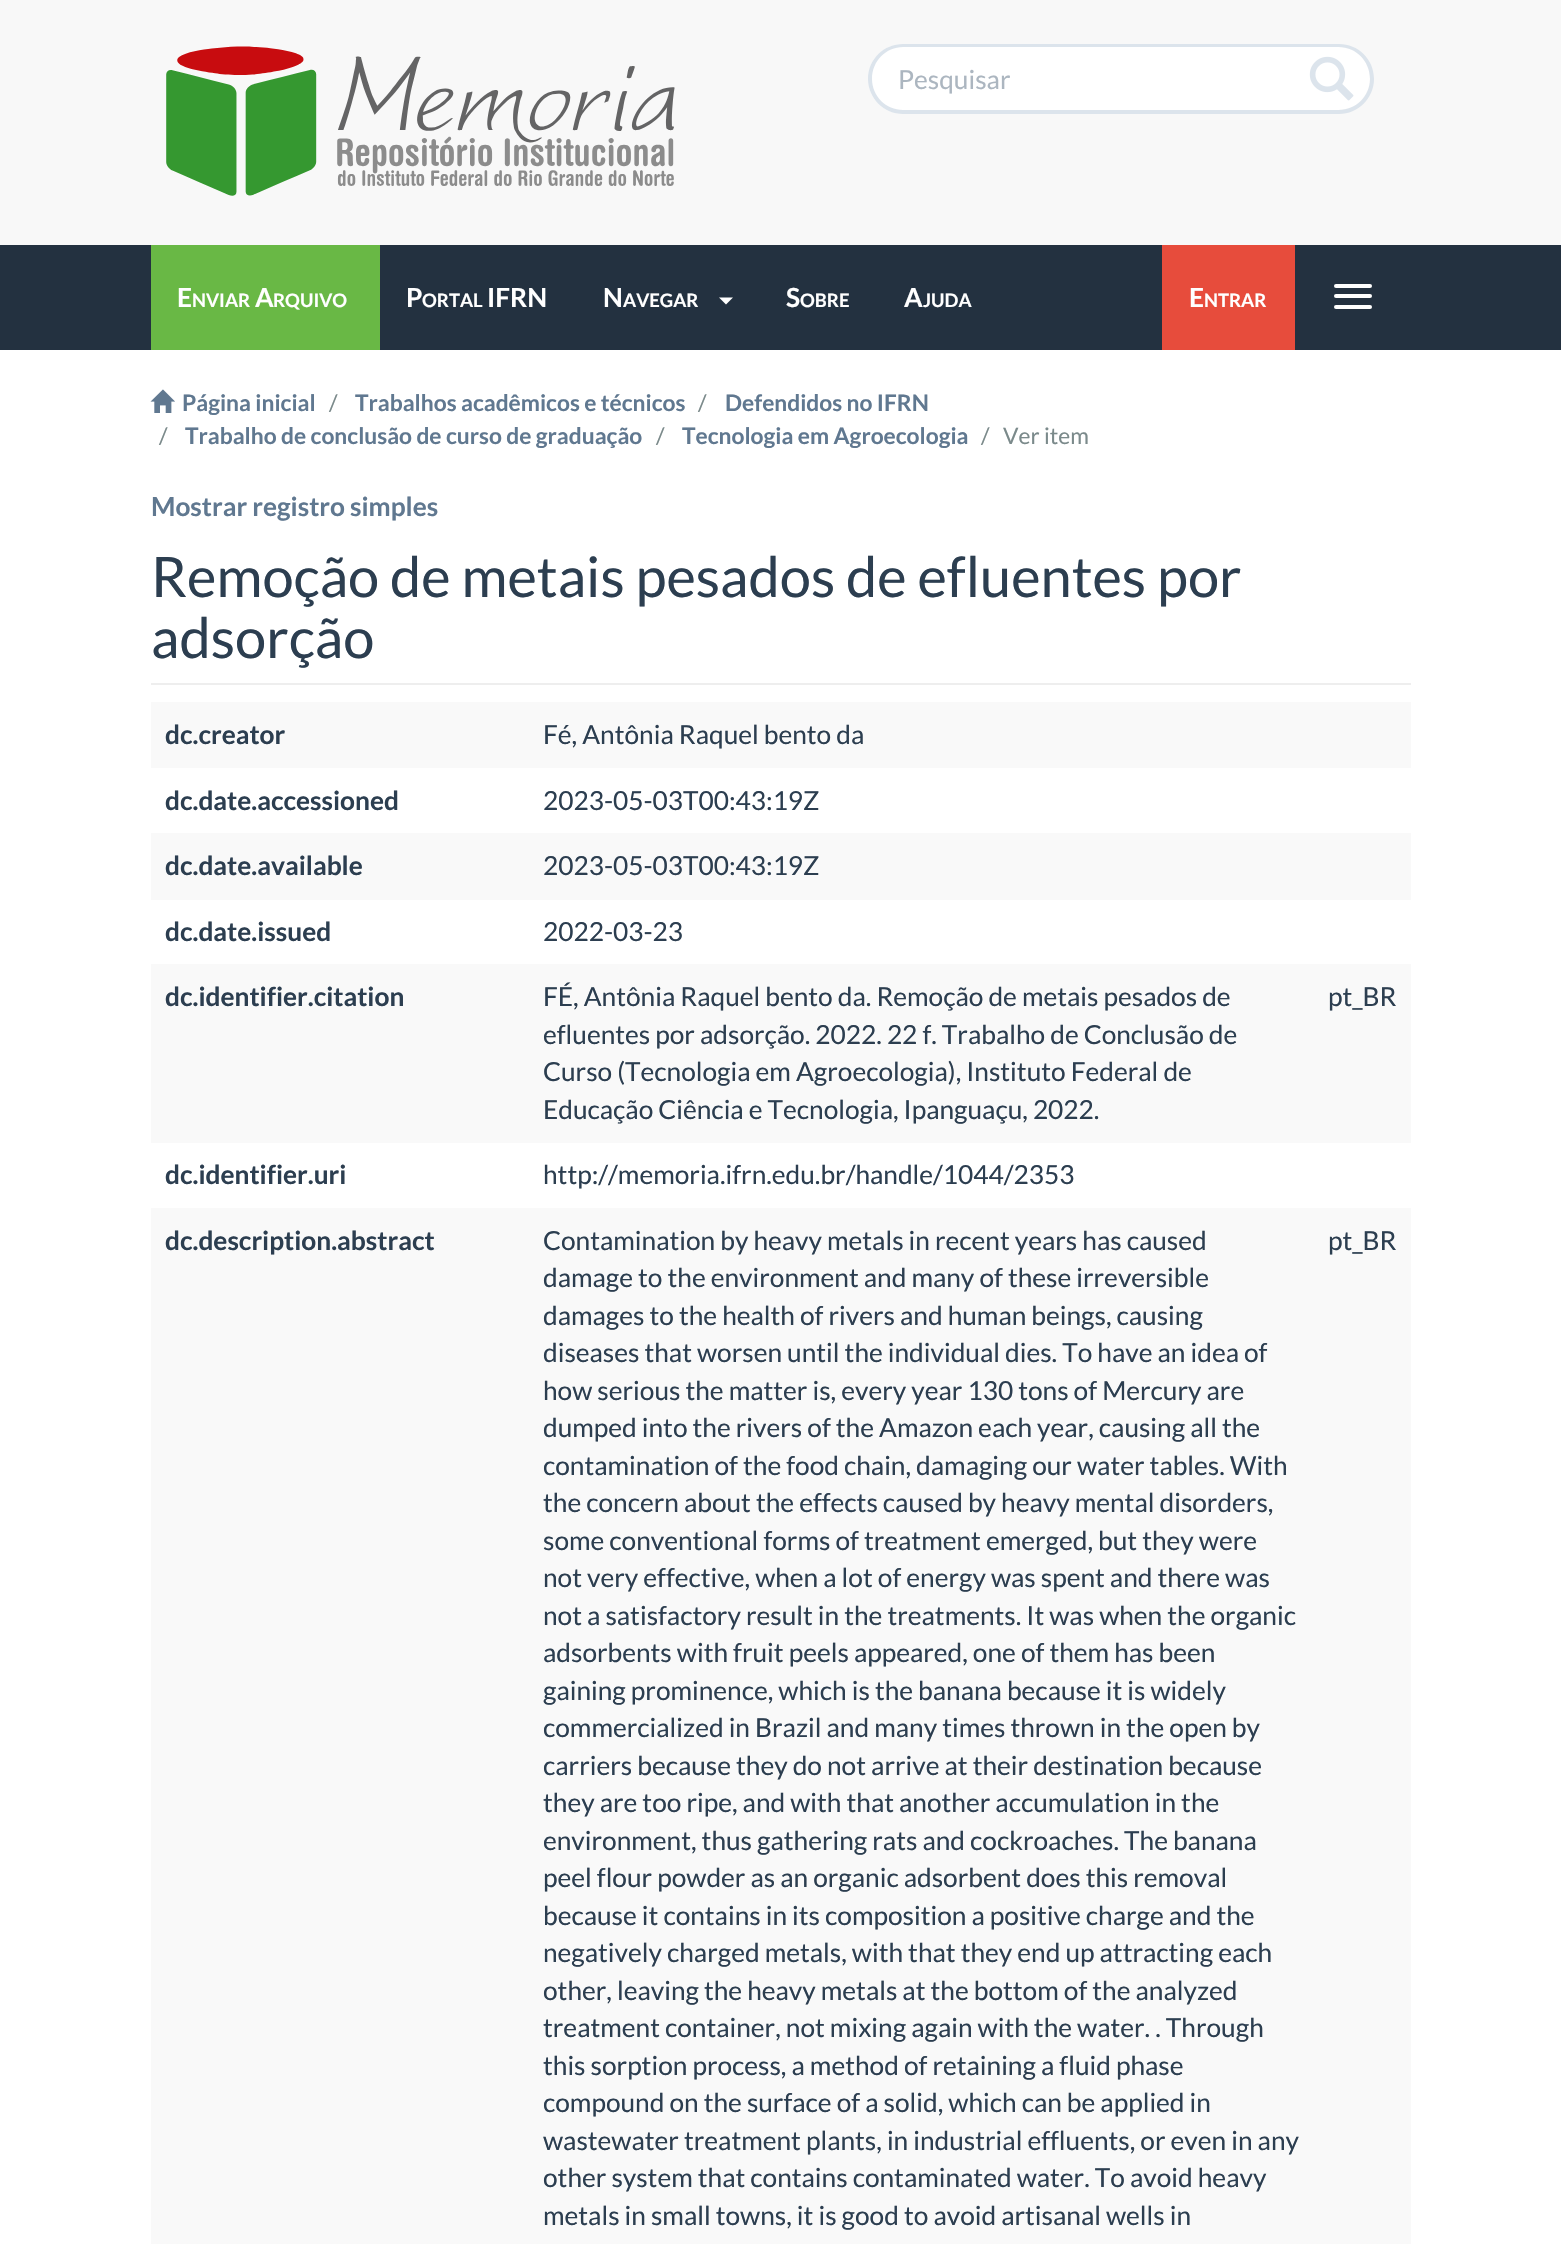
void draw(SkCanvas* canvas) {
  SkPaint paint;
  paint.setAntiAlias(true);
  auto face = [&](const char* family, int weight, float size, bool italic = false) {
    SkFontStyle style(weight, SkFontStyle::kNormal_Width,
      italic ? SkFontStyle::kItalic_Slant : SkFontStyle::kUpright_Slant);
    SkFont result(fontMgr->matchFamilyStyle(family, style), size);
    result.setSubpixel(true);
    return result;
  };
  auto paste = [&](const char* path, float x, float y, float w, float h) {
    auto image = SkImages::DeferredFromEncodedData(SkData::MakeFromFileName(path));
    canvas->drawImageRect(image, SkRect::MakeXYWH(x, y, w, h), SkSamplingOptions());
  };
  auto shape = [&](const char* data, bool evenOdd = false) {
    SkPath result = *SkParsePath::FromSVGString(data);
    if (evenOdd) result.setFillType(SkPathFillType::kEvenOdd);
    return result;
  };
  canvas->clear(0xffffffff);
  paint.setColor(0xfff8f8f8);
  canvas->drawRect(SkRect::MakeXYWH(0, 0, 1561, 245), paint);
  paste("img/1.png", 166, 46, 509, 150);
  paint.setColor(0xffffffff);
  canvas->drawPath(shape("M1292 47H1338.5C1356 47 1370 61 1370 78.5C1370 96 1356 110 1338.5 110H1292Z"), paint);
  paint.setColor(0xffdce4ec);
  canvas->drawPath(shape("M1292 44H1339C1358 44 1374 59 1374 79C1374 98 1358 114 1339 114H1292ZM1292 47H1339C1356 47 1370 61 1370 79C1370 96 1356 110 1339 110H1292Z", true), paint);
  paint.setColor(0xffffffff);
  canvas->drawPath(shape("M903 44H1295V114H903C883.5 114 868 98.5 868 79C868 59.5 883.5 44 903 44Z"), paint);
  paint.setColor(0xffdce4ec);
  canvas->drawPath(shape("M903 44H1295V114H903C884 114 868 98 868 79C868 59 884 44 903 44ZM903 47H1295V110H903C886 110 872 96 872 79C872 61 886 47 903 47Z", true), paint);
  paste("img/2.png", 1309, 56, 45, 45);
  paint.setColor(0xff233140);
  canvas->drawRect(SkRect::MakeXYWH(0, 245, 1561, 105), paint);
  paint.setColor(0xff69b845);
  canvas->drawRect(SkRect::MakeXYWH(151, 245, 229, 105), paint);
  paint.setColor(0xffffffff);
  canvas->drawPath(shape("M719 297.5H733L726 304.5Z"), paint);
  paint.setColor(0xffe74c3c);
  canvas->drawRect(SkRect::MakeXYWH(1162, 245, 133, 105), paint);
  paint.setColor(0xffffffff);
  canvas->drawRoundRect(SkRect::MakeXYWH(1334, 284, 38, 4), 2, 2, paint);
  canvas->drawRoundRect(SkRect::MakeXYWH(1334, 294, 38, 4), 2, 2, paint);
  canvas->drawRoundRect(SkRect::MakeXYWH(1334, 305, 38, 4), 2, 2, paint);
  paste("img/3.png", 150, 389, 25, 24);
  {
    const struct { float x, y, w, h; SkColor color; } items[] = {
      {151, 683, 1260, 2, 0xffeeeeee},
      {151, 702, 1260, 66, 0xfff9f9f9},
      {151, 833, 1260, 67, 0xfff9f9f9},
      {151, 964, 1260, 179, 0xfff9f9f9},
      {151, 1208, 1260, 1036, 0xfff9f9f9},
    };
    for (auto [x, y, w, h, color] : items) {
      paint.setColor(color);
      canvas->drawRect(SkRect::MakeXYWH(x, y, w, h), paint);
    }
  }
  auto f0 = face("Lato", 400, 26.25f);
  paint.setColor(0xffacb6c0);
  canvas->drawString("Pesquisar", 898, 89, f0, paint);
  auto f1 = face("Lato", 700, 26.25f);
  paint.setColor(0xffffffff);
  canvas->drawString("E", 177, 307, f1, paint);
  auto f2 = face("Lato", 700, 18.5f);
  canvas->drawString("NVIAR", 192, 307, f2, paint);
  canvas->drawString("A", 255, 307, f1, paint);
  canvas->drawString("RQUIVO", 273, 307, f2, paint);
  canvas->drawString("P", 406, 307, f1, paint);
  canvas->drawString("ORTAL", 422, 307, f2, paint);
  canvas->drawString("IFRN", 487, 307, f1, paint);
  canvas->drawString("N", 603, 307, f1, paint);
  canvas->drawString("AVEGAR", 623, 307, f2, paint);
  canvas->drawString("S", 786, 307, f1, paint);
  canvas->drawString("OBRE", 800, 307, f2, paint);
  canvas->drawString("A", 904, 307, f1, paint);
  canvas->drawString("JUDA", 923, 307, f2, paint);
  canvas->drawString("E", 1189, 307, f1, paint);
  canvas->drawString("NTRAR", 1204, 307, f2, paint);
  auto f3 = face("Lato", 700, 22.75f);
  paint.setColor(0xff607890);
  canvas->drawString("Página inicial", 182, 411, f3, paint);
  auto f4 = face("Lato", 400, 22.75f);
  paint.setColor(0xff7b8a8b);
  canvas->drawString("/", 329, 411, f4, paint);
  paint.setColor(0xff607890);
  canvas->drawString("Trabalhos acadêmicos e técnicos", 355, 411, f3, paint);
  paint.setColor(0xff7b8a8b);
  canvas->drawString("/", 698, 411, f4, paint);
  paint.setColor(0xff607890);
  canvas->drawString("Defendidos no IFRN", 725, 411, f3, paint);
  paint.setColor(0xff7b8a8b);
  canvas->drawString("/", 159, 444, f4, paint);
  paint.setColor(0xff607890);
  canvas->drawString("Trabalho de conclusão de curso de graduação", 185, 444, f3, paint);
  paint.setColor(0xff7b8a8b);
  canvas->drawString("/", 656, 444, f4, paint);
  paint.setColor(0xff607890);
  canvas->drawString("Tecnologia em Agroecologia", 682, 444, f3, paint);
  paint.setColor(0xff7b8a8b);
  canvas->drawString("/", 981, 444, f4, paint);
  canvas->drawString("Ver item", 1003, 444, f4, paint);
  paint.setColor(0xff607890);
  canvas->drawString("Mostrar registro simples", 151, 516, f1, paint);
  auto f5 = face("Lato", 400, 56);
  paint.setColor(0xff2c3e50);
  canvas->drawString("Remoção de metais pesados de efluentes por", 151, 597, f5, paint);
  canvas->drawString("adsorção", 151, 658, f5, paint);
  canvas->drawString("dc.creator", 165, 744, f1, paint);
  canvas->drawString("Fé, Antônia Raquel bento da", 543, 744, f0, paint);
  canvas->drawString("dc.date.accessioned", 165, 810, f1, paint);
  canvas->drawString("2023-05-03T00:43:19Z", 543, 810, f0, paint);
  canvas->drawString("dc.date.available", 165, 875, f1, paint);
  canvas->drawString("2023-05-03T00:43:19Z", 543, 875, f0, paint);
  canvas->drawString("dc.date.issued", 165, 941, f1, paint);
  canvas->drawString("2022-03-23", 543, 941, f0, paint);
  canvas->drawString("dc.identifier.citation", 165, 1006, f1, paint);
  {
    const struct { const char* s; float x, y; } items[] = {
      {"FÉ, Antônia Raquel bento da. Remoção de metais pesados de", 543, 1006},
      {"efluentes por adsorção. 2022. 22 f. Trabalho de Conclusão de", 543, 1044},
      {"Curso (Tecnologia em Agroecologia), Instituto Federal de", 543, 1081},
      {"Educação Ciência e Tecnologia, Ipanguaçu, 2022.", 543, 1119},
      {"pt_BR", 1328, 1006},
    };
    for (auto [s, x, y] : items) {
      canvas->drawString(s, x, y, f0, paint);
    }
  }
  canvas->drawString("dc.identifier.uri", 165, 1184, f1, paint);
  canvas->drawString("http://memoria.ifrn.edu.br/handle/1044/2353", 543, 1184, f0, paint);
  canvas->drawString("dc.description.abstract", 165, 1250, f1, paint);
  {
    const struct { const char* s; float x, y; } items[] = {
      {"Contamination by heavy metals in recent years has caused", 543, 1250},
      {"damage to the environment and many of these irreversible", 543, 1287},
      {"damages to the health of rivers and human beings, causing", 543, 1325},
      {"diseases that worsen until the individual dies. To have an idea of", 543, 1362},
      {"how serious the matter is, every year 130 tons of Mercury are", 543, 1400},
      {"dumped into the rivers of the Amazon each year, causing all the", 543, 1437},
      {"contamination of the food chain, damaging our water tables. With", 543, 1475},
      {"the concern about the effects caused by heavy mental disorders,", 543, 1512},
      {"some conventional forms of treatment emerged, but they were", 543, 1550},
      {"not very effective, when a lot of energy was spent and there was", 543, 1587},
      {"not a satisfactory result in the treatments. It was when the organic", 543, 1625},
      {"adsorbents with fruit peels appeared, one of them has been", 543, 1662},
      {"gaining prominence, which is the banana because it is widely", 543, 1700},
      {"commercialized in Brazil and many times thrown in the open by", 543, 1737},
      {"carriers because they do not arrive at their destination because", 543, 1775},
      {"they are too ripe, and with that another accumulation in the", 543, 1812},
      {"environment, thus gathering rats and cockroaches. The banana", 543, 1850},
      {"peel flour powder as an organic adsorbent does this removal", 543, 1887},
      {"because it contains in its composition a positive charge and the", 543, 1925},
      {"negatively charged metals, with that they end up attracting each", 543, 1962},
      {"other, leaving the heavy metals at the bottom of the analyzed", 543, 2000},
      {"treatment container, not mixing again with the water. . Through", 543, 2037},
      {"this sorption process, a method of retaining a fluid phase", 543, 2075},
      {"compound on the surface of a solid, which can be applied in", 543, 2112},
      {"wastewater treatment plants, in industrial effluents, or even in any", 543, 2150},
      {"other system that contains contaminated water. To avoid heavy", 543, 2187},
      {"metals in small towns, it is good to avoid artisanal wells in", 543, 2225},
      {"pt_BR", 1328, 1250},
    };
    for (auto [s, x, y] : items) {
      canvas->drawString(s, x, y, f0, paint);
    }
  }
}
